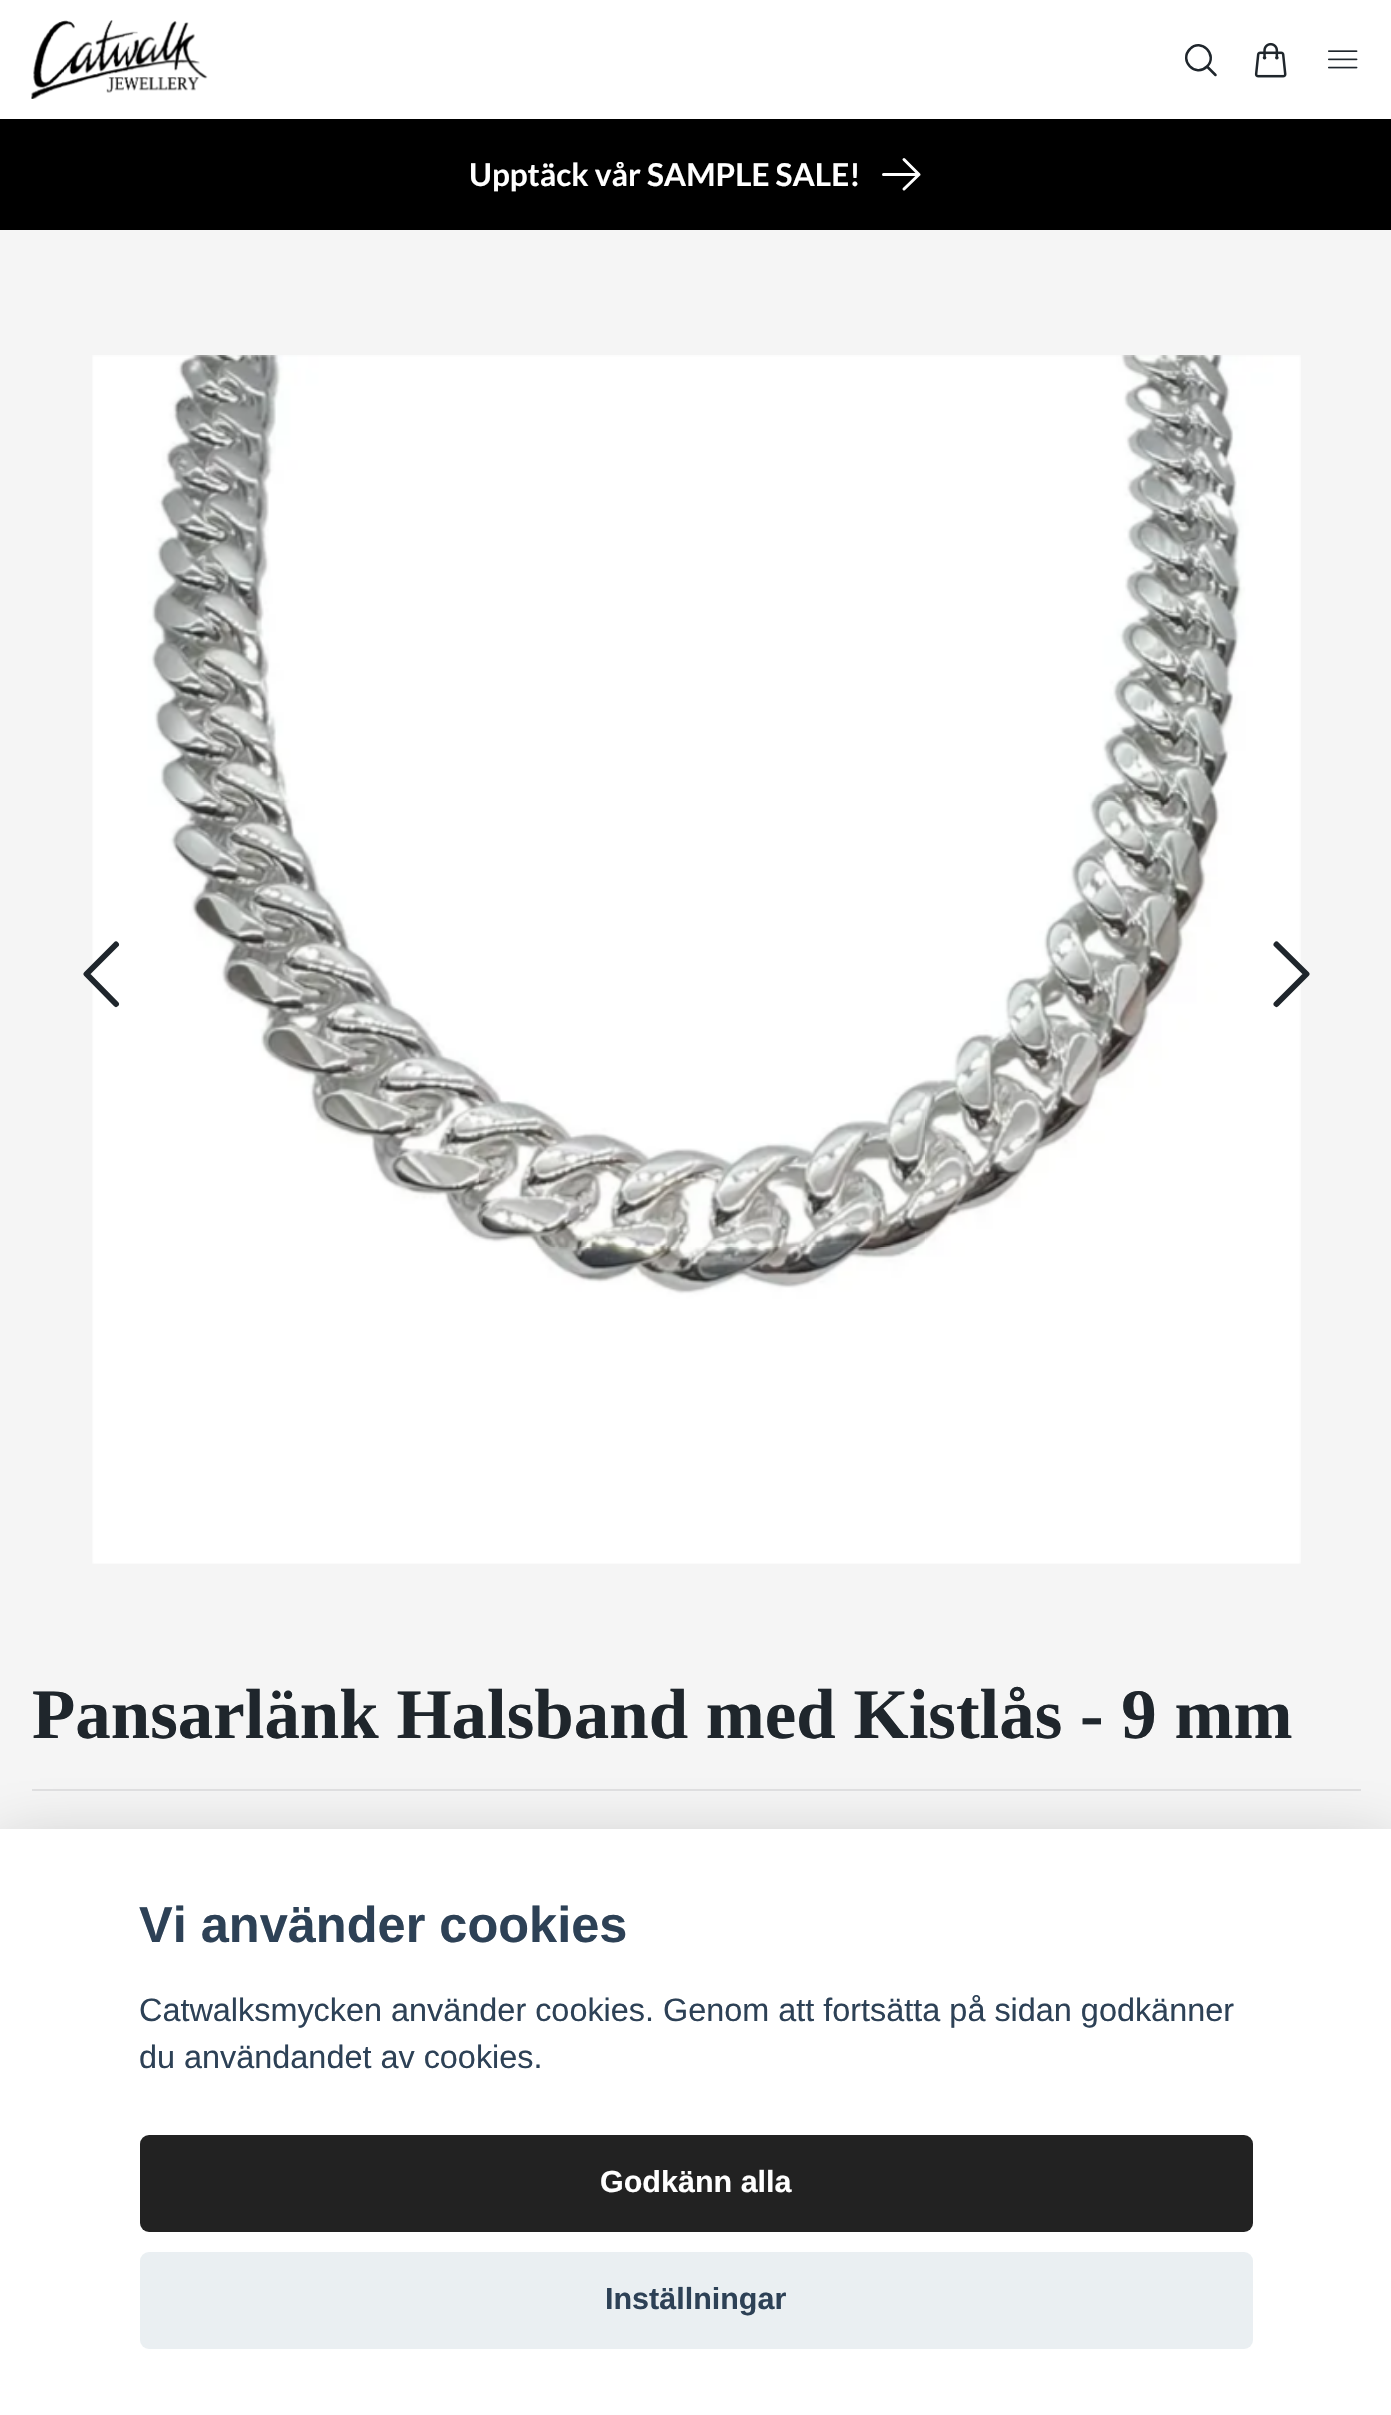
void draw(SkCanvas* canvas) {
  SkPaint paint;
  paint.setAntiAlias(true);
  auto face = [&](const char* family, int weight, float size, bool italic = false) {
    SkFontStyle style(weight, SkFontStyle::kNormal_Width,
      italic ? SkFontStyle::kItalic_Slant : SkFontStyle::kUpright_Slant);
    SkFont result(fontMgr->matchFamilyStyle(family, style), size);
    result.setSubpixel(true);
    return result;
  };
  auto paste = [&](const char* path, float x, float y, float w, float h) {
    auto image = SkImages::DeferredFromEncodedData(SkData::MakeFromFileName(path));
    canvas->drawImageRect(image, SkRect::MakeXYWH(x, y, w, h), SkSamplingOptions());
  };
  auto shape = [&](const char* data, bool evenOdd = false) {
    SkPath result = *SkParsePath::FromSVGString(data);
    if (evenOdd) result.setFillType(SkPathFillType::kEvenOdd);
    return result;
  };
  canvas->clear(0xfff5f5f5);
  paint.setColor(0xffffffff);
  canvas->drawRect(SkRect::MakeXYWH(0, 0, 1391, 119), paint);
  paste("img/1.png", 31, 20, 177, 79);
  paint.setStroke(true);
  paint.setStrokeWidth(2.5f);
  paint.setStrokeCap(SkPaint::kRound_Cap);
  paint.setStrokeJoin(SkPaint::kRound_Join);
  paint.setColor(0xff1f262c);
  canvas->drawPath(shape("M1215.5 75L1207 66.5M1207 66.5C1218.5 55 1201 37.5 1190 49C1178.5 60.5 1195.5 78 1207 66.5Z"), paint);
  paste("img/2.png", 1254, 42, 33, 36);
  paste("img/3.png", 1328, 50, 30, 19);
  paint.setStroke(false);
  paint.setColor(0xff000000);
  canvas->drawRect(SkRect::MakeXYWH(0, 119, 1391, 111), paint);
  paint.setStroke(true);
  paint.setStrokeWidth(3);
  paint.setColor(0xffffffff);
  canvas->drawPath(shape("M904 159.5L919 174.5M919 174.5L904 189M919 174.5H883.5"), paint);
  paste("img/4.png", 92, 355, 1209, 1209);
  paint.setStrokeWidth(5.9f);
  paint.setColor(0xff1f262c);
  canvas->drawPath(shape("M116 1004L86.5 974L116 944.5"), paint);
  canvas->drawPath(shape("M1276.5 944.5L1306.5 974L1276.5 1004"), paint);
  paint.setStroke(false);
  paint.setColor(0xffe0e0e1);
  canvas->drawRect(SkRect::MakeXYWH(32, 1789, 1329, 2), paint);
  paint.setColor(0x47020203);
  paint.setMaskFilter(SkMaskFilter::MakeBlur(kNormal_SkBlurStyle, 34));
  canvas->drawRect(SkRect::MakeXYWH(0, 1852, 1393, 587), paint);
  paint.setMaskFilter(nullptr);
  paint.setColor(0xffffffff);
  canvas->drawRect(SkRect::MakeXYWH(0, 1829, 1391, 586), paint);
  paint.setColor(0xff222222);
  canvas->drawRoundRect(SkRect::MakeXYWH(140, 2135, 1113, 97), 9, 9, paint);
  paint.setColor(0xffeaeff2);
  canvas->drawRoundRect(SkRect::MakeXYWH(140, 2252, 1113, 97), 9, 9, paint);
  auto f0 = face("Lato", 700, 31.5f);
  paint.setColor(0xffffffff);
  canvas->drawString("Upptäck vår SAMPLE SALE!", 469, 186, f0, paint);
  auto f1 = face("Liberation Serif", 700, 70.9f);
  paint.setColor(0xff1f262c);
  canvas->drawString("Pansarlänk Halsband med Kistlås - 9 mm", 32, 1738, f1, paint);
  auto f2 = face("Liberation Sans", 700, 50.5f);
  paint.setColor(0xff2d4156);
  canvas->drawString("Vi använder cookies", 139, 1942, f2, paint);
  auto f3 = face("Liberation Sans", 400, 32.4f);
  canvas->drawString("Catwalksmycken använder cookies. Genom att fortsätta på sidan godkänner", 139, 2021, f3, paint);
  canvas->drawString("du användandet av cookies.", 139, 2068, f3, paint);
  auto f4 = face("Liberation Sans", 700, 30.5f);
  paint.setColor(0xffffffff);
  canvas->drawString("Godkänn alla", 600, 2192, f4, paint);
  paint.setColor(0xff2d4156);
  canvas->drawString("Inställningar", 605, 2309, f4, paint);
}
